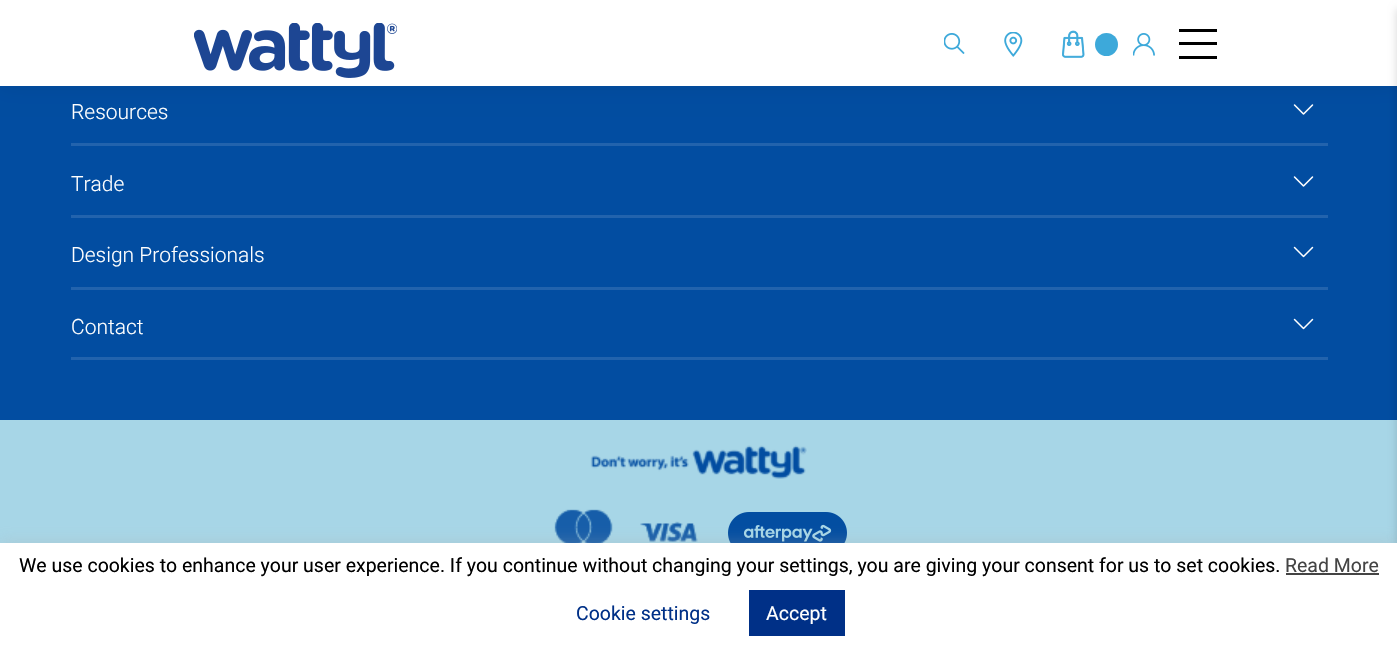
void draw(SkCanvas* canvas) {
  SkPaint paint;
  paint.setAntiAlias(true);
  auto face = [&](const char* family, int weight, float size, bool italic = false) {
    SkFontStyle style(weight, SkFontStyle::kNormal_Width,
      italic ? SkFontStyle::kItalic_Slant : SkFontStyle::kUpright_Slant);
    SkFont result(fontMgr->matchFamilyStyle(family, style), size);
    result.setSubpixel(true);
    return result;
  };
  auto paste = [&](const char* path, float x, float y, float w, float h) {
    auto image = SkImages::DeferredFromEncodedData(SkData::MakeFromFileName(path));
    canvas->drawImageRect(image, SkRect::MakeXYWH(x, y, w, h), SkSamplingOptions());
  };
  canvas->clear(0xff024da1);
  paste("img/6.png", 1293, 104, 21, 11);
  paint.setColor(0x1a000000);
  paint.setMaskFilter(SkMaskFilter::MakeBlur(kNormal_SkBlurStyle, 11));
  canvas->drawRect(SkRect::MakeXYWH(0, -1, 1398, 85), paint);
  paint.setMaskFilter(nullptr);
  paint.setColor(0xffffffff);
  canvas->drawRect(SkRect::MakeXYWH(0, 0, 1397, 86), paint);
  paste("img/1.png", 194, 23, 203, 55);
  paste("img/2.png", 944, 33, 21, 21);
  paste("img/3.png", 1004, 32, 19, 25);
  paste("img/4.png", 1062, 30, 23, 28);
  paint.setColor(0xff3da9da);
  canvas->drawCircle(1106.5f, 44.5f, 11.5f, paint);
  paste("img/5.png", 1133, 33, 22, 23);
  {
    const struct { float x, y, w, h; SkColor color; } items[] = {
      {1179, 29, 38, 3, 0xff000000},
      {1179, 42, 38, 3, 0xff000000},
      {1179, 56, 38, 3, 0xff000000},
      {71, 143, 1257, 3, 0xff2263ad},
      {71, 215, 1257, 3, 0xff2263ad},
    };
    for (auto [x, y, w, h, color] : items) {
      paint.setColor(color);
      canvas->drawRect(SkRect::MakeXYWH(x, y, w, h), paint);
    }
  }
  paste("img/6.png", 1293, 176, 21, 11);
  canvas->drawRect(SkRect::MakeXYWH(71, 287, 1257, 3), paint);
  paste("img/7.png", 1293, 246, 21, 12);
  canvas->drawRect(SkRect::MakeXYWH(71, 357, 1257, 3), paint);
  paste("img/7.png", 1293, 318, 21, 12);
  paint.setColor(0xffa7d6e7);
  canvas->drawRect(SkRect::MakeXYWH(0, 420, 1397, 123), paint);
  paste("img/8.png", 590, 445, 217, 34);
  paste("img/9.png", 554, 509, 144, 34);
  paste("img/10.png", 728, 512, 119, 31);
  paint.setColor(0x29000000);
  paint.setMaskFilter(SkMaskFilter::MakeBlur(kNormal_SkBlurStyle, 4));
  canvas->drawRect(SkRect::MakeXYWH(1397, 9, 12, 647), paint);
  paint.setMaskFilter(nullptr);
  paint.setColor(0x4dacabab);
  paint.setMaskFilter(SkMaskFilter::MakeBlur(kNormal_SkBlurStyle, 7.5f));
  canvas->drawRect(SkRect::MakeXYWH(0, 542, 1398, 103), paint);
  paint.setMaskFilter(nullptr);
  {
    const struct { float x, y, w, h; SkColor color; } items[] = {
      {0, 543, 1397, 103, 0xffffffff},
      {1286, 573, 93, 2, 0xff444444},
      {749, 590, 96, 46, 0xff003087},
    };
    for (auto [x, y, w, h, color] : items) {
      paint.setColor(color);
      canvas->drawRect(SkRect::MakeXYWH(x, y, w, h), paint);
    }
  }
  auto f0 = face("Roboto", 300, 21);
  paint.setColor(0xffffffff);
  {
    const struct { const char* s; float x, y; } items[] = {
      {"Resources", 71, 119},
      {"Trade", 71, 191},
      {"Design Professionals", 71, 262},
      {"Contact", 71, 334},
    };
    for (auto [s, x, y] : items) {
      canvas->drawString(s, x, y, f0, paint);
    }
  }
  auto f1 = face("Roboto", 400, 19.5f);
  paint.setColor(0xff000000);
  canvas->drawString("We use cookies to enhance your user experience. If you continue without changing your settings, you are giving your consent for us to set cookies.", 19, 572, f1, paint);
  paint.setColor(0xff444444);
  canvas->drawString("Read More", 1285, 572, f1, paint);
  paint.setColor(0xff003087);
  canvas->drawString("Cookie settings", 576, 620, f1, paint);
  paint.setColor(0xffffffff);
  canvas->drawString("Accept", 766, 620, f1, paint);
}
